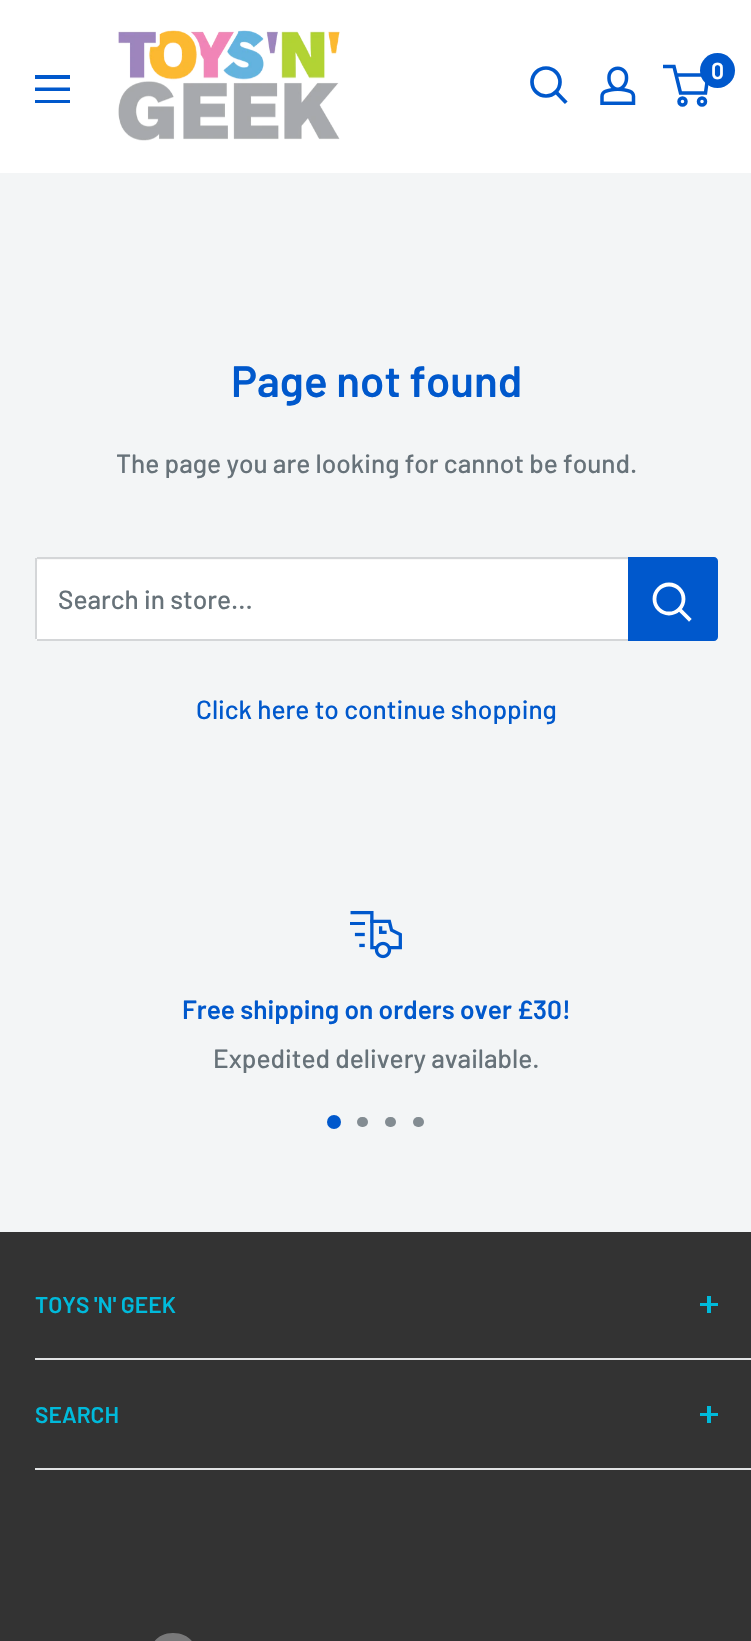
void draw(SkCanvas* canvas) {
  SkPaint paint;
  paint.setAntiAlias(true);
  auto face = [&](const char* family, int weight, float size, bool italic = false) {
    SkFontStyle style(weight, SkFontStyle::kNormal_Width,
      italic ? SkFontStyle::kItalic_Slant : SkFontStyle::kUpright_Slant);
    SkFont result(fontMgr->matchFamilyStyle(family, style), size);
    result.setSubpixel(true);
    return result;
  };
  auto paste = [&](const char* path, float x, float y, float w, float h) {
    auto image = SkImages::DeferredFromEncodedData(SkData::MakeFromFileName(path));
    canvas->drawImageRect(image, SkRect::MakeXYWH(x, y, w, h), SkSamplingOptions());
  };
  auto shape = [&](const char* data, bool evenOdd = false) {
    SkPath result = *SkParsePath::FromSVGString(data);
    if (evenOdd) result.setFillType(SkPathFillType::kEvenOdd);
    return result;
  };
  canvas->clear(0xfff3f5f6);
  paint.setColor(0xffffffff);
  canvas->drawRect(SkRect::MakeXYWH(0, 0, 751, 173), paint);
  paste("img/1.png", 118, 30, 222, 111);
  paint.setStroke(true);
  paint.setStrokeWidth(3.7f);
  paint.setStrokeCap(SkPaint::kSquare_Cap);
  paint.setColor(0xff0058cc);
  canvas->drawPath(shape("M565 101.5L556 92"), paint);
  paint.setStrokeCap(SkPaint::kButt_Cap);
  canvas->drawCircle(546, 82, 14, paint);
  paste("img/2.png", 600, 66, 36, 39);
  paint.setStrokeWidth(3.5f);
  canvas->drawCircle(682.5f, 101.5f, 3.5f, paint);
  canvas->drawCircle(702, 101.5f, 3.5f, paint);
  canvas->drawPath(shape("M676 75H708L705.5 93H680.5L674 66.5H663"), paint);
  paint.setStroke(false);
  canvas->drawCircle(717.5f, 70.5f, 17.5f, paint);
  canvas->drawPath(shape("M35 100H70V103H35ZM35 75H70V79H35ZM35 87.5H70V91H35Z", true), paint);
  paint.setColor(0xffffffff);
  canvas->drawPath(shape("M39 557H628V641H39C37 641 35 639 35 637V561C35 559 37 557 39 557Z"), paint);
  paint.setColor(0xfff8f8f8);
  canvas->drawPath(shape("M38 560H628V558H39L37 559V562Z"), paint);
  {
    const struct { float x, y, w, h; SkColor color; } items[] = {
      {37, 557, 591, 2, 0xffd4d6d8},
      {37, 639, 591, 2, 0xffd4d6d8},
      {35, 558, 2, 81, 0xffd4d6d8},
    };
    for (auto [x, y, w, h, color] : items) {
      paint.setColor(color);
      canvas->drawRect(SkRect::MakeXYWH(x, y, w, h), paint);
    }
  }
  paint.setColor(0xff0058cc);
  canvas->drawPath(shape("M628 557H714C716 557 718 559 718 561V637C718 639 716 641 714 641H628Z"), paint);
  paint.setStroke(true);
  paint.setStrokeWidth(3.8f);
  paint.setStrokeCap(SkPaint::kSquare_Cap);
  paint.setColor(0xffffffff);
  canvas->drawPath(shape("M689 619L679.5 609.5"), paint);
  paint.setStrokeCap(SkPaint::kButt_Cap);
  canvas->drawCircle(669, 599, 14.5f, paint);
  paste("img/3.png", 350, 910, 52, 49);
  paint.setStroke(false);
  paint.setColor(0xff0058cc);
  canvas->drawCircle(334, 1122, 7, paint);
  paint.setColor(0xff838c92);
  canvas->drawRoundRect(SkRect::MakeXYWH(357, 1117, 11, 10), 5, 5, paint);
  canvas->drawRoundRect(SkRect::MakeXYWH(385, 1117, 11, 10), 5, 5, paint);
  canvas->drawRoundRect(SkRect::MakeXYWH(413, 1117, 11, 10), 5, 5, paint);
  {
    const struct { float x, y, w, h; SkColor color; } items[] = {
      {0, 1232, 751, 409, 0xff333333},
      {35, 1358, 716, 2, 0xffe1e3e4},
      {707, 1296, 4, 17, 0xff00badb},
      {700, 1303, 18, 3, 0xff00badb},
      {35, 1468, 716, 2, 0xffe1e3e4},
      {707, 1406, 4, 17, 0xff00badb},
      {700, 1413, 18, 3, 0xff00badb},
    };
    for (auto [x, y, w, h, color] : items) {
      paint.setColor(color);
      canvas->drawRect(SkRect::MakeXYWH(x, y, w, h), paint);
    }
  }
  paint.setColor(0xff79797a);
  canvas->drawPath(shape("M173 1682C141 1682 141 1633 173 1633C206 1633 206 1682 173 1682ZM179 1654H175C175 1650 174 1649 179 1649V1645C171 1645 170 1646 170 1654H168V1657H170V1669H175V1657H179Z", true), paint);
  auto f0 = face("Barlow", 600, 23);
  paint.setColor(0xffffffff);
  canvas->drawString("0", 711, 79, f0, paint);
  auto f1 = face("Barlow", 600, 43.75f);
  paint.setColor(0xff0058cc);
  canvas->drawString("Page not found", 231, 397, f1, paint);
  auto f2 = face("Barlow", 500, 26.25f);
  paint.setColor(0xff677279);
  canvas->drawString("The page you are looking for cannot be found.", 116, 473, f2, paint);
  canvas->drawString("Search in store...", 58, 609, f2, paint);
  paint.setColor(0xff0058cc);
  canvas->drawString("Click here to continue shopping", 196, 719, f2, paint);
  auto f3 = face("Barlow", 600, 26.25f);
  canvas->drawString("Free shipping on orders over £30!", 182, 1019, f3, paint);
  paint.setColor(0xff677279);
  canvas->drawString("Expedited delivery available.", 213, 1068, f2, paint);
  auto f4 = face("Barlow", 600, 22.75f);
  paint.setColor(0xff00badb);
  canvas->drawString("TOYS 'N' GEEK", 35, 1313, f4, paint);
  canvas->drawString("SEARCH", 35, 1423, f4, paint);
}
